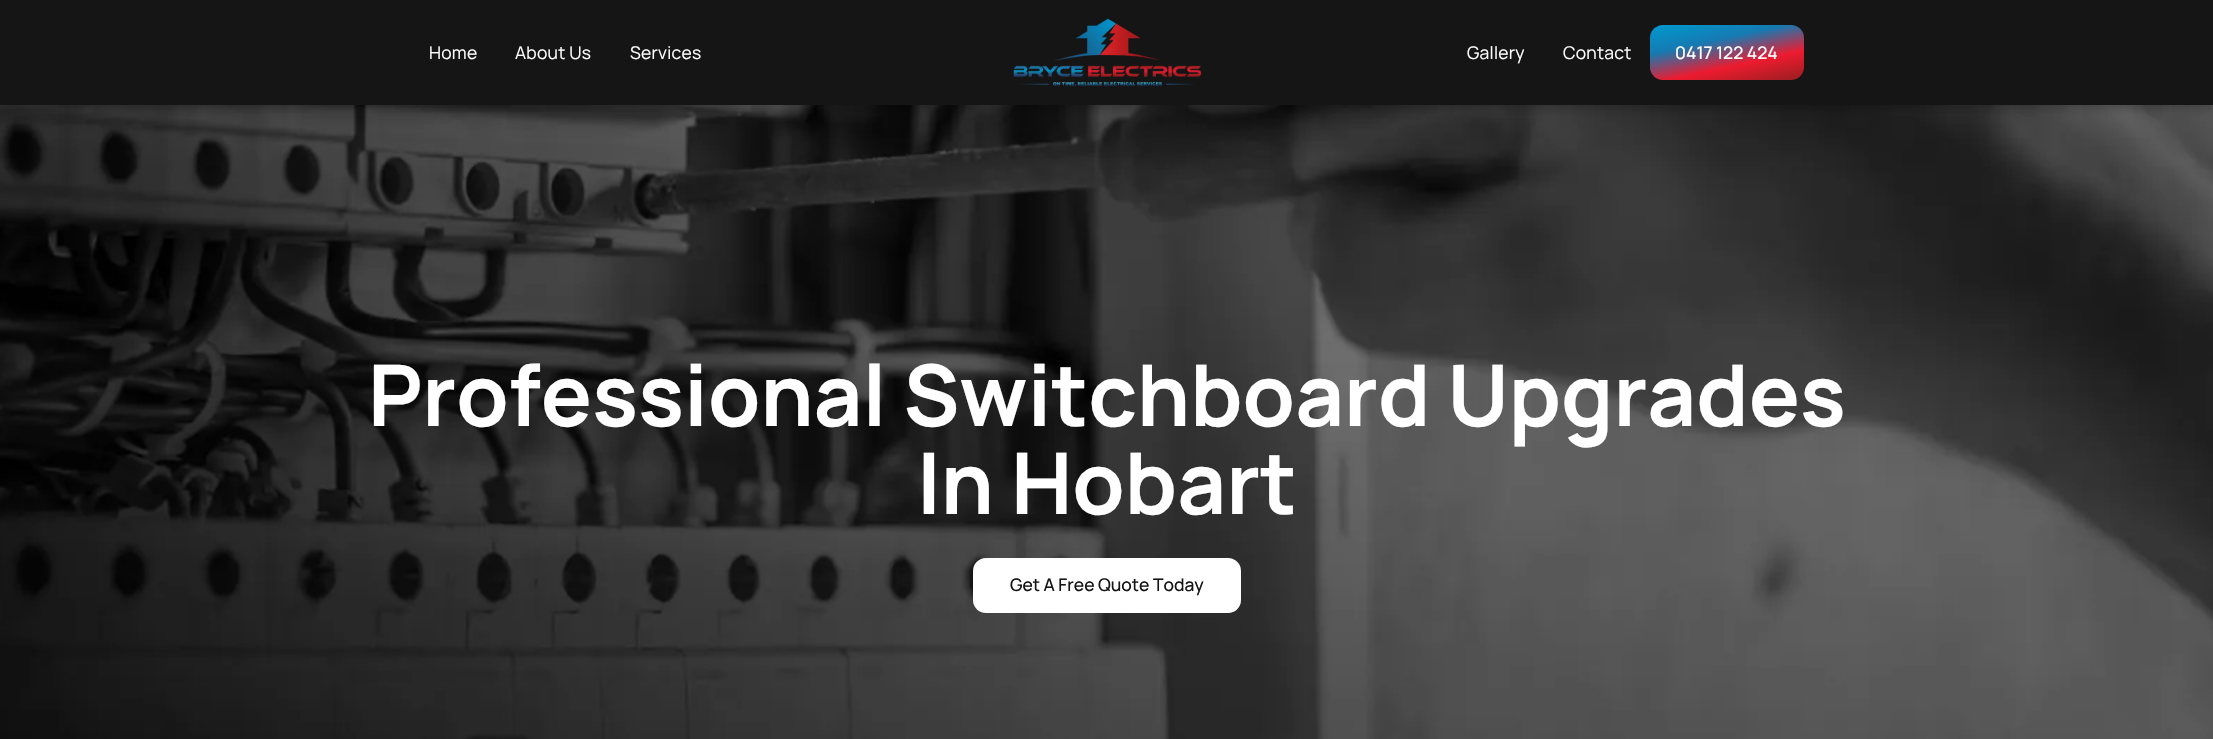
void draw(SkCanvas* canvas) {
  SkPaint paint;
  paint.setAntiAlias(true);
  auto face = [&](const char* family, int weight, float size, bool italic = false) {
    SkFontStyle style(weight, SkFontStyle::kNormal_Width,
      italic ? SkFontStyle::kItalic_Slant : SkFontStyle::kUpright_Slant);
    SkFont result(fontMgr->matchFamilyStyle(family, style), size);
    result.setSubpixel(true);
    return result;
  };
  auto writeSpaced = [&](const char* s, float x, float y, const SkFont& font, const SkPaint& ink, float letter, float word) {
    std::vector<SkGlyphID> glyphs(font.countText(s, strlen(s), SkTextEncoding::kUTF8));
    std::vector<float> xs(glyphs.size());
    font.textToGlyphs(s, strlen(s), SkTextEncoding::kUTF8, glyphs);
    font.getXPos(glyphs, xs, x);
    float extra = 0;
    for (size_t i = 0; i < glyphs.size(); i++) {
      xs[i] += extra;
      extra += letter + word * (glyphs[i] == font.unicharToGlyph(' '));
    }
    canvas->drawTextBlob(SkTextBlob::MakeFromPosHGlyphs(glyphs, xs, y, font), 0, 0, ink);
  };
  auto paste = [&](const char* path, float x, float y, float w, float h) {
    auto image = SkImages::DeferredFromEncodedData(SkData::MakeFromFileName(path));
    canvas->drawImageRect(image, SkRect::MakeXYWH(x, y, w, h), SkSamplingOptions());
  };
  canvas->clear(0xffffffff);
  paste("img/2.png", 0, 105, 2213, 634);
  paint.setColor(0x33000000);
  paint.setMaskFilter(SkMaskFilter::MakeBlur(kNormal_SkBlurStyle, 4));
  canvas->drawRect(SkRect::MakeXYWH(0, 4, 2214, 105), paint);
  paint.setMaskFilter(nullptr);
  paint.setColor(0xff151515);
  canvas->drawRect(SkRect::MakeXYWH(0, 0, 2213, 105), paint);
  paste("img/1.png", 1013, 18, 189, 69);
  {
    const SkColor colors[] = {0xff0099ce, 0xff167ab2, 0xffed1b2f, 0xff9b1e20};
    const float stops[] = {0, 0.33f, 0.67f, 1};
    const SkPoint ends[] = {{1718, 11}, {1736, 94}};
    paint.setShader(SkGradientShader::MakeLinear(ends, colors, stops, 4, SkTileMode::kClamp));
    paint.setAlpha(255);
  }
  canvas->drawRoundRect(SkRect::MakeXYWH(1650, 25, 154, 55), 13, 13, paint);
  paint.setShader(nullptr);
  paint.setColor(0xffffffff);
  canvas->drawRoundRect(SkRect::MakeXYWH(973, 558, 268, 55), 13, 13, paint);
  auto f0 = face("Manrope", 400, 17.5f);
  {
    const struct { const char* s; float x, y; } items[] = {
      {"Home", 429, 59},
      {"About Us", 515, 59},
      {"Services", 630, 59},
      {"Gallery", 1467, 59},
      {"Contact", 1563, 59},
    };
    for (auto [s, x, y] : items) {
      writeSpaced(s, x, y, f0, paint, 0.25f, 0);
    }
  }
  auto f1 = face("Manrope", 500, 17.5f);
  canvas->drawString("0417 122 424", 1675, 59, f1, paint);
  auto f2 = face("Manrope", 700, 85);
  canvas->drawString("Professional Switchboard Upgrades", 368, 426, f2, paint);
  canvas->drawString("In Hobart", 917, 514, f2, paint);
  paint.setColor(0xff151515);
  canvas->drawString("Get A Free Quote Today", 1010, 591, f1, paint);
}
